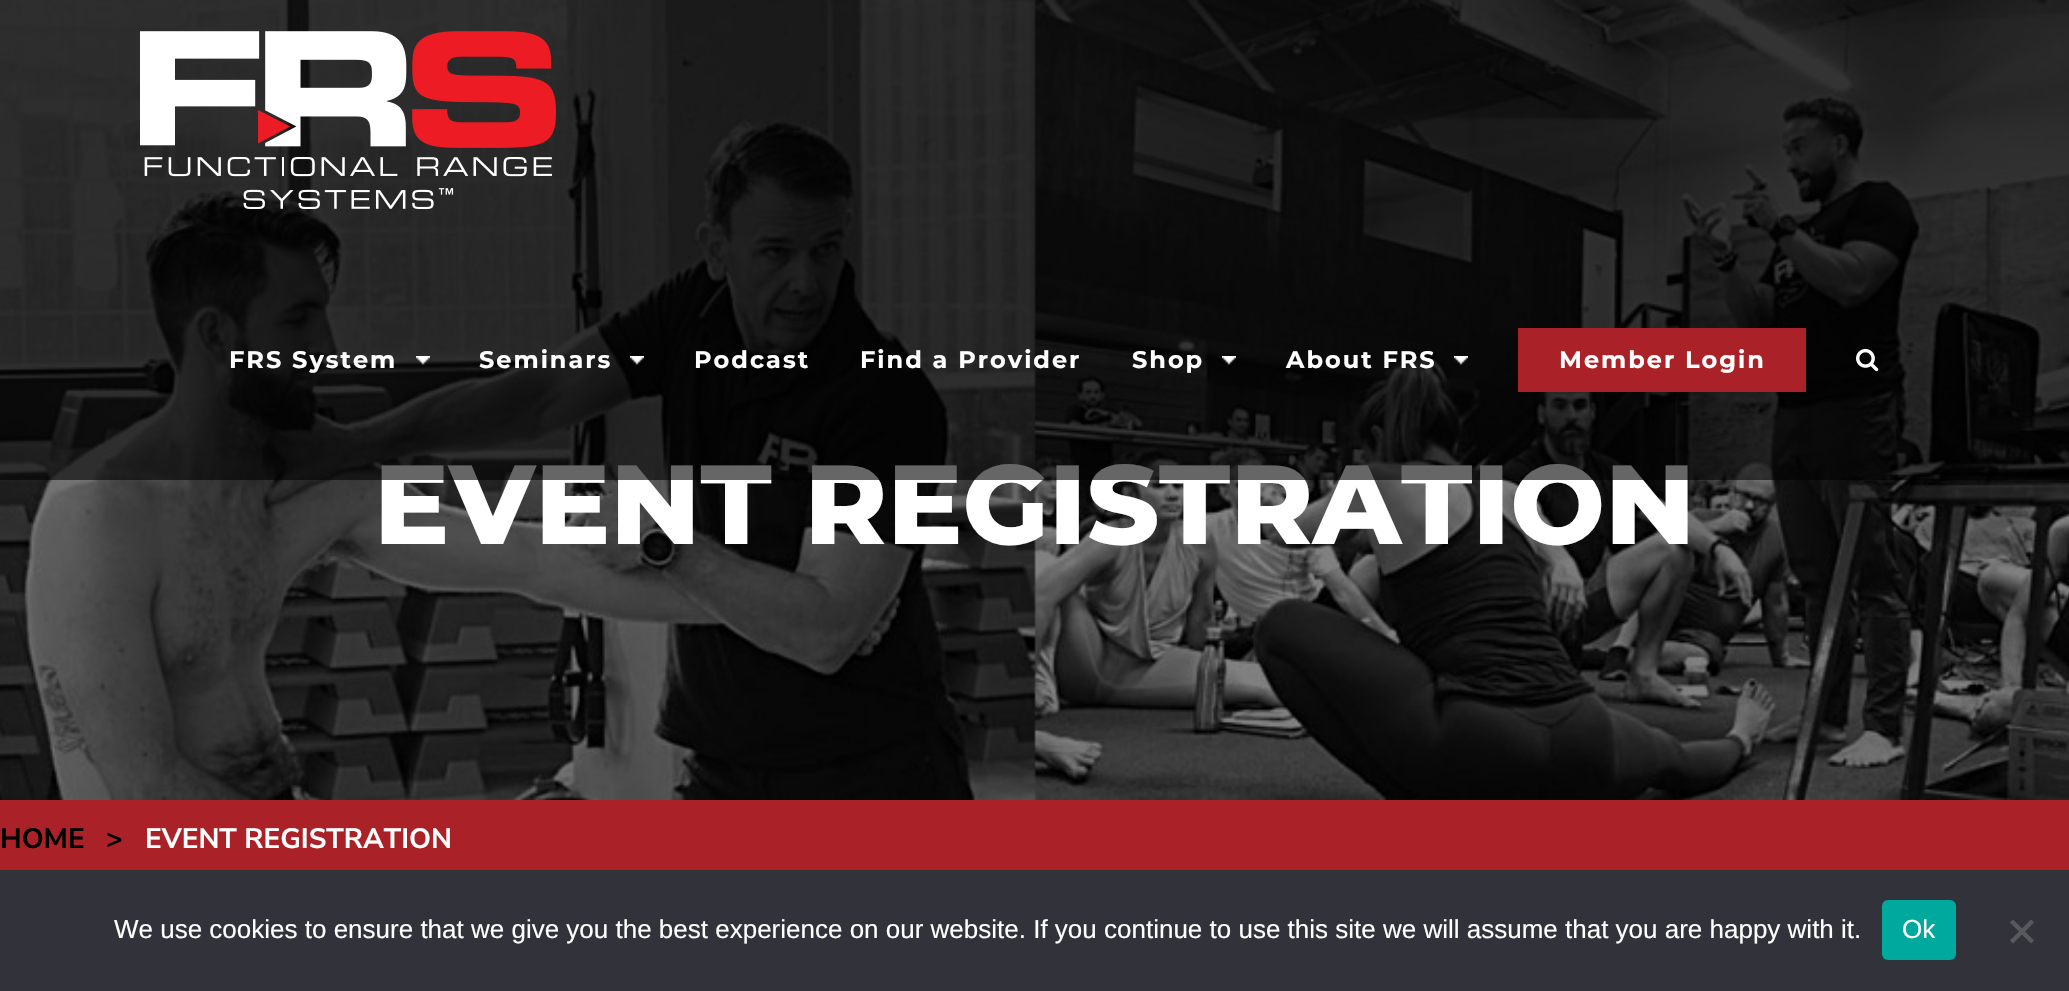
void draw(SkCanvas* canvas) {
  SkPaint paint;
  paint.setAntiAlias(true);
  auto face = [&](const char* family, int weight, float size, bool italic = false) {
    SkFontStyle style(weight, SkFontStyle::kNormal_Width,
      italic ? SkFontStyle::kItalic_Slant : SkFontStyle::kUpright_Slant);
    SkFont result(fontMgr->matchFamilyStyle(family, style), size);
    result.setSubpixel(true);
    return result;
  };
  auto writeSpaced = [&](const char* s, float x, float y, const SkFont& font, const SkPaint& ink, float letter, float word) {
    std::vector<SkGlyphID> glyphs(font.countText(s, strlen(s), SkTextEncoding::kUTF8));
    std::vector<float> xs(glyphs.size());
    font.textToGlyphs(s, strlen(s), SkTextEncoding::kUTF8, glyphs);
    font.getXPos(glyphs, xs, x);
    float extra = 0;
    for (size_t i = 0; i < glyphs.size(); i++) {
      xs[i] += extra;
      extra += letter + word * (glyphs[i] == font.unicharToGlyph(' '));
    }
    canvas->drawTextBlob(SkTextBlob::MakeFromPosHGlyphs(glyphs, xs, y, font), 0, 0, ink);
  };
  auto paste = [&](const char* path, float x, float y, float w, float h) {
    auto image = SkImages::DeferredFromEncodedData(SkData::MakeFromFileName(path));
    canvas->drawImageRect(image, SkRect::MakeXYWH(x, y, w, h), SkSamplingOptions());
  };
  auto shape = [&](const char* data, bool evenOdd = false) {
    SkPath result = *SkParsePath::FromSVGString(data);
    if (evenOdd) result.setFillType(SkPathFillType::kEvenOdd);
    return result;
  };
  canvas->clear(0xffffffff);
  paste("img/7.png", 0, 0, 2069, 800);
  paint.setColor(0xffaa2227);
  canvas->drawRect(SkRect::MakeXYWH(0, 800, 2069, 70), paint);
  paint.setColor(0xff32323a);
  canvas->drawRect(SkRect::MakeXYWH(0, 870, 2069, 121), paint);
  paint.setColor(0xff00a99d);
  canvas->drawRoundRect(SkRect::MakeXYWH(1882, 900, 74, 60), 6, 6, paint);
  paint.setColor(0xff59595d);
  canvas->drawPath(shape("M2031 919.5L2034 922.5L2013 943.5L2010 940.5Z"), paint);
  canvas->drawPath(shape("M2010 922.5L2013 919.5L2034 940.5L2031 943.5Z"), paint);
  auto f0 = face("Montserrat", 800, 112);
  paint.setColor(0xffffffff);
  canvas->drawString("EVENT REGISTRATION", 374, 544, f0, paint);
  paint.setColor(0x99000000);
  canvas->drawRect(SkRect::MakeXYWH(0, 0, 2069, 480), paint);
  paste("img/6.png", 1856, 348, 23, 24);
  paint.setColor(0xffaa2227);
  canvas->drawRect(SkRect::MakeXYWH(1518, 328, 288, 64), paint);
  auto f1 = face("Montserrat", 700, 24);
  paint.setColor(0xffffffff);
  writeSpaced("Member Login", 1559, 368, f1, paint, 2, 0);
  paste("img/5.png", 1454, 356, 14, 9);
  writeSpaced("About FRS", 1286, 368, f1, paint, 2, 0);
  paste("img/4.png", 1222, 356, 14, 9);
  {
    const struct { const char* s; float x, y; } items[] = {
      {"Shop", 1132, 368},
      {"Find a Provider", 860, 368},
      {"Podcast", 694, 368},
    };
    for (auto [s, x, y] : items) {
      writeSpaced(s, x, y, f1, paint, 2, 0);
    }
  }
  paste("img/3.png", 630, 356, 14, 9);
  writeSpaced("Seminars", 479, 368, f1, paint, 2, 0);
  paste("img/2.png", 416, 356, 14, 9);
  writeSpaced("FRS System", 229, 368, f1, paint, 2, 0);
  paste("img/1.png", 140, 31, 416, 178);
  auto f2 = face("Nunito Sans", 700, 28);
  paint.setColor(0xff000000);
  canvas->drawString("HOME", 0, 848, f2, paint);
  canvas->drawString(">", 106, 848, f2, paint);
  paint.setColor(0xffffffff);
  canvas->drawString("EVENT REGISTRATION", 145, 848, f2, paint);
  auto f3 = face("Liberation Sans", 400, 26);
  canvas->drawString("We use cookies to ensure that we give you the best experience on our website. If you continue to use this site we will assume that you are happy with it.", 114, 938, f3, paint);
  canvas->drawString("Ok", 1902, 938, f3, paint);
}
